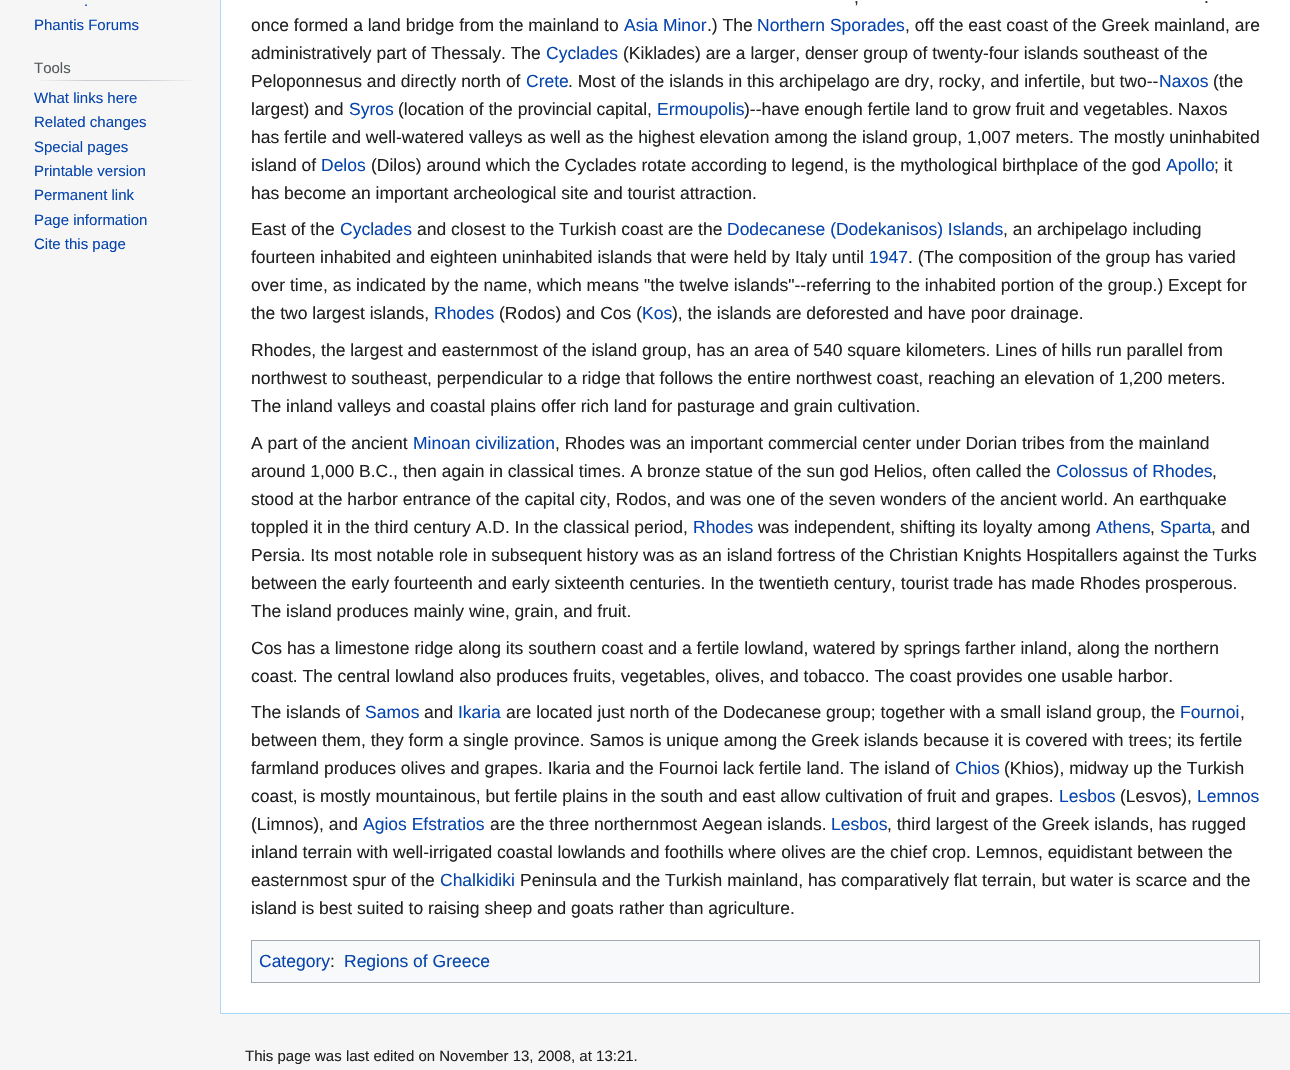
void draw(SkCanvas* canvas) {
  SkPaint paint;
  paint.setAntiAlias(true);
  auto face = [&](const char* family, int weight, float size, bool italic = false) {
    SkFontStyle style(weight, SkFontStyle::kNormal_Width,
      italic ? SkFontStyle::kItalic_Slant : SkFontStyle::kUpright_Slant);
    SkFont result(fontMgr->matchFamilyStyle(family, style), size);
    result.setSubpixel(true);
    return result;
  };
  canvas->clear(0xfff6f6f6);
  {
    const SkColor colors[] = {0xfff6f6f6, 0xffc8ccd1, 0xffc8ccd1, 0xfff6f6f6};
    const float stops[] = {0, 0.33f, 0.66f, 1};
    const SkPoint ends[] = {{34, 81}, {198, 81}};
    paint.setShader(SkGradientShader::MakeLinear(ends, colors, stops, 4, SkTileMode::kClamp));
    paint.setAlpha(255);
  }
  canvas->drawRect(SkRect::MakeXYWH(34, 80, 164, 1), paint);
  paint.setShader(nullptr);
  {
    const struct { float x, y, w, h; SkColor color; } items[] = {
      {221, 0, 1069, 1013, 0xffffffff},
      {220, 1013, 1070, 1, 0xffa7d7f9},
      {220, 0, 1, 1014, 0xffa7d7f9},
    };
    for (auto [x, y, w, h, color] : items) {
      paint.setColor(color);
      canvas->drawRect(SkRect::MakeXYWH(x, y, w, h), paint);
    }
  }
  paint.setColor(0xfff8f9fa);
  canvas->drawRect(SkRect::MakeXYWH(251.5f, 940.5f, 1008, 42), paint);
  paint.setStroke(true);
  paint.setStrokeWidth(1);
  paint.setColor(0xffa2a9b1);
  canvas->drawRect(SkRect::MakeXYWH(251.5f, 940.5f, 1008, 42), paint);
  auto f0 = face("Liberation Sans", 400, 15);
  paint.setStroke(false);
  paint.setColor(0xff0645ad);
  canvas->drawString(".", 84, 6, f0, paint);
  canvas->drawString("Phantis Forums", 34, 30, f0, paint);
  paint.setColor(0xff54595d);
  canvas->drawString("Tools", 34, 73, f0, paint);
  paint.setColor(0xff0645ad);
  {
    const struct { const char* s; float x, y; } items[] = {
      {"What links here", 34, 103},
      {"Related changes", 34, 127},
      {"Special pages", 34, 152},
      {"Printable version", 34, 176},
      {"Permanent link", 34, 200},
      {"Page information", 34, 225},
      {"Cite this page", 34, 249},
    };
    for (auto [s, x, y] : items) {
      canvas->drawString(s, x, y, f0, paint);
    }
  }
  auto f1 = face("Liberation Sans", 400, 17.5f);
  paint.setColor(0xff202122);
  {
    const struct { const char* s; float x, y; } items[] = {
      {",", 854, 3},
      {".", 1204, 3},
      {"once formed a land bridge from the mainland to", 251, 31},
    };
    for (auto [s, x, y] : items) {
      canvas->drawString(s, x, y, f1, paint);
    }
  }
  paint.setColor(0xff0645ad);
  canvas->drawString("Asia Minor", 624, 31, f1, paint);
  paint.setColor(0xff202122);
  canvas->drawString(".) The", 707, 31, f1, paint);
  paint.setColor(0xff0645ad);
  canvas->drawString("Northern Sporades", 757, 31, f1, paint);
  paint.setColor(0xff202122);
  canvas->drawString(", off the east coast of the Greek mainland, are", 905, 31, f1, paint);
  canvas->drawString("administratively part of Thessaly. The", 251, 59, f1, paint);
  paint.setColor(0xff0645ad);
  canvas->drawString("Cyclades", 546, 59, f1, paint);
  paint.setColor(0xff202122);
  canvas->drawString("(Kiklades) are a larger, denser group of twenty-four islands southeast of the", 623, 59, f1, paint);
  canvas->drawString("Peloponnesus and directly north of", 251, 87, f1, paint);
  paint.setColor(0xff0645ad);
  canvas->drawString("Crete", 526, 87, f1, paint);
  paint.setColor(0xff202122);
  canvas->drawString(". Most of the islands in this archipelago are dry, rocky, and infertile, but two--", 568, 87, f1, paint);
  paint.setColor(0xff0645ad);
  canvas->drawString("Naxos", 1159, 87, f1, paint);
  paint.setColor(0xff202122);
  canvas->drawString("(the", 1213, 87, f1, paint);
  canvas->drawString("largest) and", 251, 115, f1, paint);
  paint.setColor(0xff0645ad);
  canvas->drawString("Syros", 349, 115, f1, paint);
  paint.setColor(0xff202122);
  canvas->drawString("(location of the provincial capital,", 398, 115, f1, paint);
  paint.setColor(0xff0645ad);
  canvas->drawString("Ermoupolis", 657, 115, f1, paint);
  paint.setColor(0xff202122);
  {
    const struct { const char* s; float x, y; } items[] = {
      {")--have enough fertile land to grow fruit and vegetables. Naxos", 744, 115},
      {"has fertile and well-watered valleys as well as the highest elevation among the island group, 1,007 meters. The mostly uninhabited", 251, 143},
      {"island of", 251, 171},
    };
    for (auto [s, x, y] : items) {
      canvas->drawString(s, x, y, f1, paint);
    }
  }
  paint.setColor(0xff0645ad);
  canvas->drawString("Delos", 321, 171, f1, paint);
  paint.setColor(0xff202122);
  canvas->drawString("(Dilos) around which the Cyclades rotate according to legend, is the mythological birthplace of the god", 371, 171, f1, paint);
  paint.setColor(0xff0645ad);
  canvas->drawString("Apollo", 1166, 171, f1, paint);
  paint.setColor(0xff202122);
  {
    const struct { const char* s; float x, y; } items[] = {
      {"; it", 1214, 171},
      {"has become an important archeological site and tourist attraction.", 251, 199},
      {"East of the", 251, 235},
    };
    for (auto [s, x, y] : items) {
      canvas->drawString(s, x, y, f1, paint);
    }
  }
  paint.setColor(0xff0645ad);
  canvas->drawString("Cyclades", 340, 235, f1, paint);
  paint.setColor(0xff202122);
  canvas->drawString("and closest to the Turkish coast are the", 417, 235, f1, paint);
  paint.setColor(0xff0645ad);
  canvas->drawString("Dodecanese (Dodekanisos) Islands", 727, 235, f1, paint);
  paint.setColor(0xff202122);
  canvas->drawString(", an archipelago including", 1003, 235, f1, paint);
  canvas->drawString("fourteen inhabited and eighteen uninhabited islands that were held by Italy until", 251, 263, f1, paint);
  paint.setColor(0xff0645ad);
  canvas->drawString("1947", 869, 263, f1, paint);
  paint.setColor(0xff202122);
  {
    const struct { const char* s; float x, y; } items[] = {
      {". (The composition of the group has varied", 908, 263},
      {"over time, as indicated by the name, which means \"the twelve islands\"--referring to the inhabited portion of the group.) Except for", 251, 291},
      {"the two largest islands,", 251, 319},
    };
    for (auto [s, x, y] : items) {
      canvas->drawString(s, x, y, f1, paint);
    }
  }
  paint.setColor(0xff0645ad);
  canvas->drawString("Rhodes", 434, 319, f1, paint);
  paint.setColor(0xff202122);
  canvas->drawString("(Rodos) and Cos (", 499, 319, f1, paint);
  paint.setColor(0xff0645ad);
  canvas->drawString("Kos", 642, 319, f1, paint);
  paint.setColor(0xff202122);
  {
    const struct { const char* s; float x, y; } items[] = {
      {"), the islands are deforested and have poor drainage.", 672, 319},
      {"Rhodes, the largest and easternmost of the island group, has an area of 540 square kilometers. Lines of hills run parallel from", 251, 356},
      {"northwest to southeast, perpendicular to a ridge that follows the entire northwest coast, reaching an elevation of 1,200 meters.", 251, 384},
      {"The inland valleys and coastal plains offer rich land for pasturage and grain cultivation.", 251, 412},
      {"A part of the ancient", 251, 449},
    };
    for (auto [s, x, y] : items) {
      canvas->drawString(s, x, y, f1, paint);
    }
  }
  paint.setColor(0xff0645ad);
  canvas->drawString("Minoan civilization", 413, 449, f1, paint);
  paint.setColor(0xff202122);
  canvas->drawString(", Rhodes was an important commercial center under Dorian tribes from the mainland", 555, 449, f1, paint);
  canvas->drawString("around 1,000 B.C., then again in classical times. A bronze statue of the sun god Helios, often called the", 251, 477, f1, paint);
  paint.setColor(0xff0645ad);
  canvas->drawString("Colossus of Rhodes", 1056, 477, f1, paint);
  paint.setColor(0xff202122);
  {
    const struct { const char* s; float x, y; } items[] = {
      {",", 1212, 477},
      {"stood at the harbor entrance of the capital city, Rodos, and was one of the seven wonders of the ancient world. An earthquake", 251, 505},
      {"toppled it in the third century A.D. In the classical period,", 251, 533},
    };
    for (auto [s, x, y] : items) {
      canvas->drawString(s, x, y, f1, paint);
    }
  }
  paint.setColor(0xff0645ad);
  canvas->drawString("Rhodes", 693, 533, f1, paint);
  paint.setColor(0xff202122);
  canvas->drawString("was independent, shifting its loyalty among", 758, 533, f1, paint);
  paint.setColor(0xff0645ad);
  canvas->drawString("Athens", 1096, 533, f1, paint);
  paint.setColor(0xff202122);
  canvas->drawString(",", 1150, 533, f1, paint);
  paint.setColor(0xff0645ad);
  canvas->drawString("Sparta", 1160, 533, f1, paint);
  paint.setColor(0xff202122);
  {
    const struct { const char* s; float x, y; } items[] = {
      {", and", 1211, 533},
      {"Persia. Its most notable role in subsequent history was as an island fortress of the Christian Knights Hospitallers against the Turks", 251, 561},
      {"between the early fourteenth and early sixteenth centuries. In the twentieth century, tourist trade has made Rhodes prosperous.", 251, 589},
      {"The island produces mainly wine, grain, and fruit.", 251, 617},
      {"Cos has a limestone ridge along its southern coast and a fertile lowland, watered by springs farther inland, along the northern", 251, 654},
      {"coast. The central lowland also produces fruits, vegetables, olives, and tobacco. The coast provides one usable harbor.", 251, 682},
      {"The islands of", 251, 718},
    };
    for (auto [s, x, y] : items) {
      canvas->drawString(s, x, y, f1, paint);
    }
  }
  paint.setColor(0xff0645ad);
  canvas->drawString("Samos", 365, 718, f1, paint);
  paint.setColor(0xff202122);
  canvas->drawString("and", 424, 718, f1, paint);
  paint.setColor(0xff0645ad);
  canvas->drawString("Ikaria", 458, 718, f1, paint);
  paint.setColor(0xff202122);
  canvas->drawString("are located just north of the Dodecanese group; together with a small island group, the", 506, 718, f1, paint);
  paint.setColor(0xff0645ad);
  canvas->drawString("Fournoi", 1180, 718, f1, paint);
  paint.setColor(0xff202122);
  {
    const struct { const char* s; float x, y; } items[] = {
      {",", 1240, 718},
      {"between them, they form a single province. Samos is unique among the Greek islands because it is covered with trees; its fertile", 251, 746},
      {"farmland produces olives and grapes. Ikaria and the Fournoi lack fertile land. The island of", 251, 774},
    };
    for (auto [s, x, y] : items) {
      canvas->drawString(s, x, y, f1, paint);
    }
  }
  paint.setColor(0xff0645ad);
  canvas->drawString("Chios", 955, 774, f1, paint);
  paint.setColor(0xff202122);
  canvas->drawString("(Khios), midway up the Turkish", 1004, 774, f1, paint);
  canvas->drawString("coast, is mostly mountainous, but fertile plains in the south and east allow cultivation of fruit and grapes.", 251, 802, f1, paint);
  paint.setColor(0xff0645ad);
  canvas->drawString("Lesbos", 1059, 802, f1, paint);
  paint.setColor(0xff202122);
  canvas->drawString("(Lesvos),", 1120, 802, f1, paint);
  paint.setColor(0xff0645ad);
  canvas->drawString("Lemnos", 1197, 802, f1, paint);
  paint.setColor(0xff202122);
  canvas->drawString("(Limnos), and", 251, 830, f1, paint);
  paint.setColor(0xff0645ad);
  canvas->drawString("Agios Efstratios", 363, 830, f1, paint);
  paint.setColor(0xff202122);
  canvas->drawString("are the three northernmost Aegean islands.", 490, 830, f1, paint);
  paint.setColor(0xff0645ad);
  canvas->drawString("Lesbos", 831, 830, f1, paint);
  paint.setColor(0xff202122);
  {
    const struct { const char* s; float x, y; } items[] = {
      {", third largest of the Greek islands, has rugged", 887, 830},
      {"inland terrain with well-irrigated coastal lowlands and foothills where olives are the chief crop. Lemnos, equidistant between the", 251, 858},
      {"easternmost spur of the", 251, 886},
    };
    for (auto [s, x, y] : items) {
      canvas->drawString(s, x, y, f1, paint);
    }
  }
  paint.setColor(0xff0645ad);
  canvas->drawString("Chalkidiki", 440, 886, f1, paint);
  paint.setColor(0xff202122);
  canvas->drawString("Peninsula and the Turkish mainland, has comparatively flat terrain, but water is scarce and the", 520, 886, f1, paint);
  canvas->drawString("island is best suited to raising sheep and goats rather than agriculture.", 251, 914, f1, paint);
  paint.setColor(0xff0645ad);
  canvas->drawString("Category", 259, 967, f1, paint);
  paint.setColor(0xff202122);
  canvas->drawString(":", 330, 967, f1, paint);
  paint.setColor(0xff0645ad);
  canvas->drawString("Regions of Greece", 344, 967, f1, paint);
  paint.setColor(0xff202122);
  canvas->drawString("This page was last edited on November 13, 2008, at 13:21.", 245, 1061, f0, paint);
}
